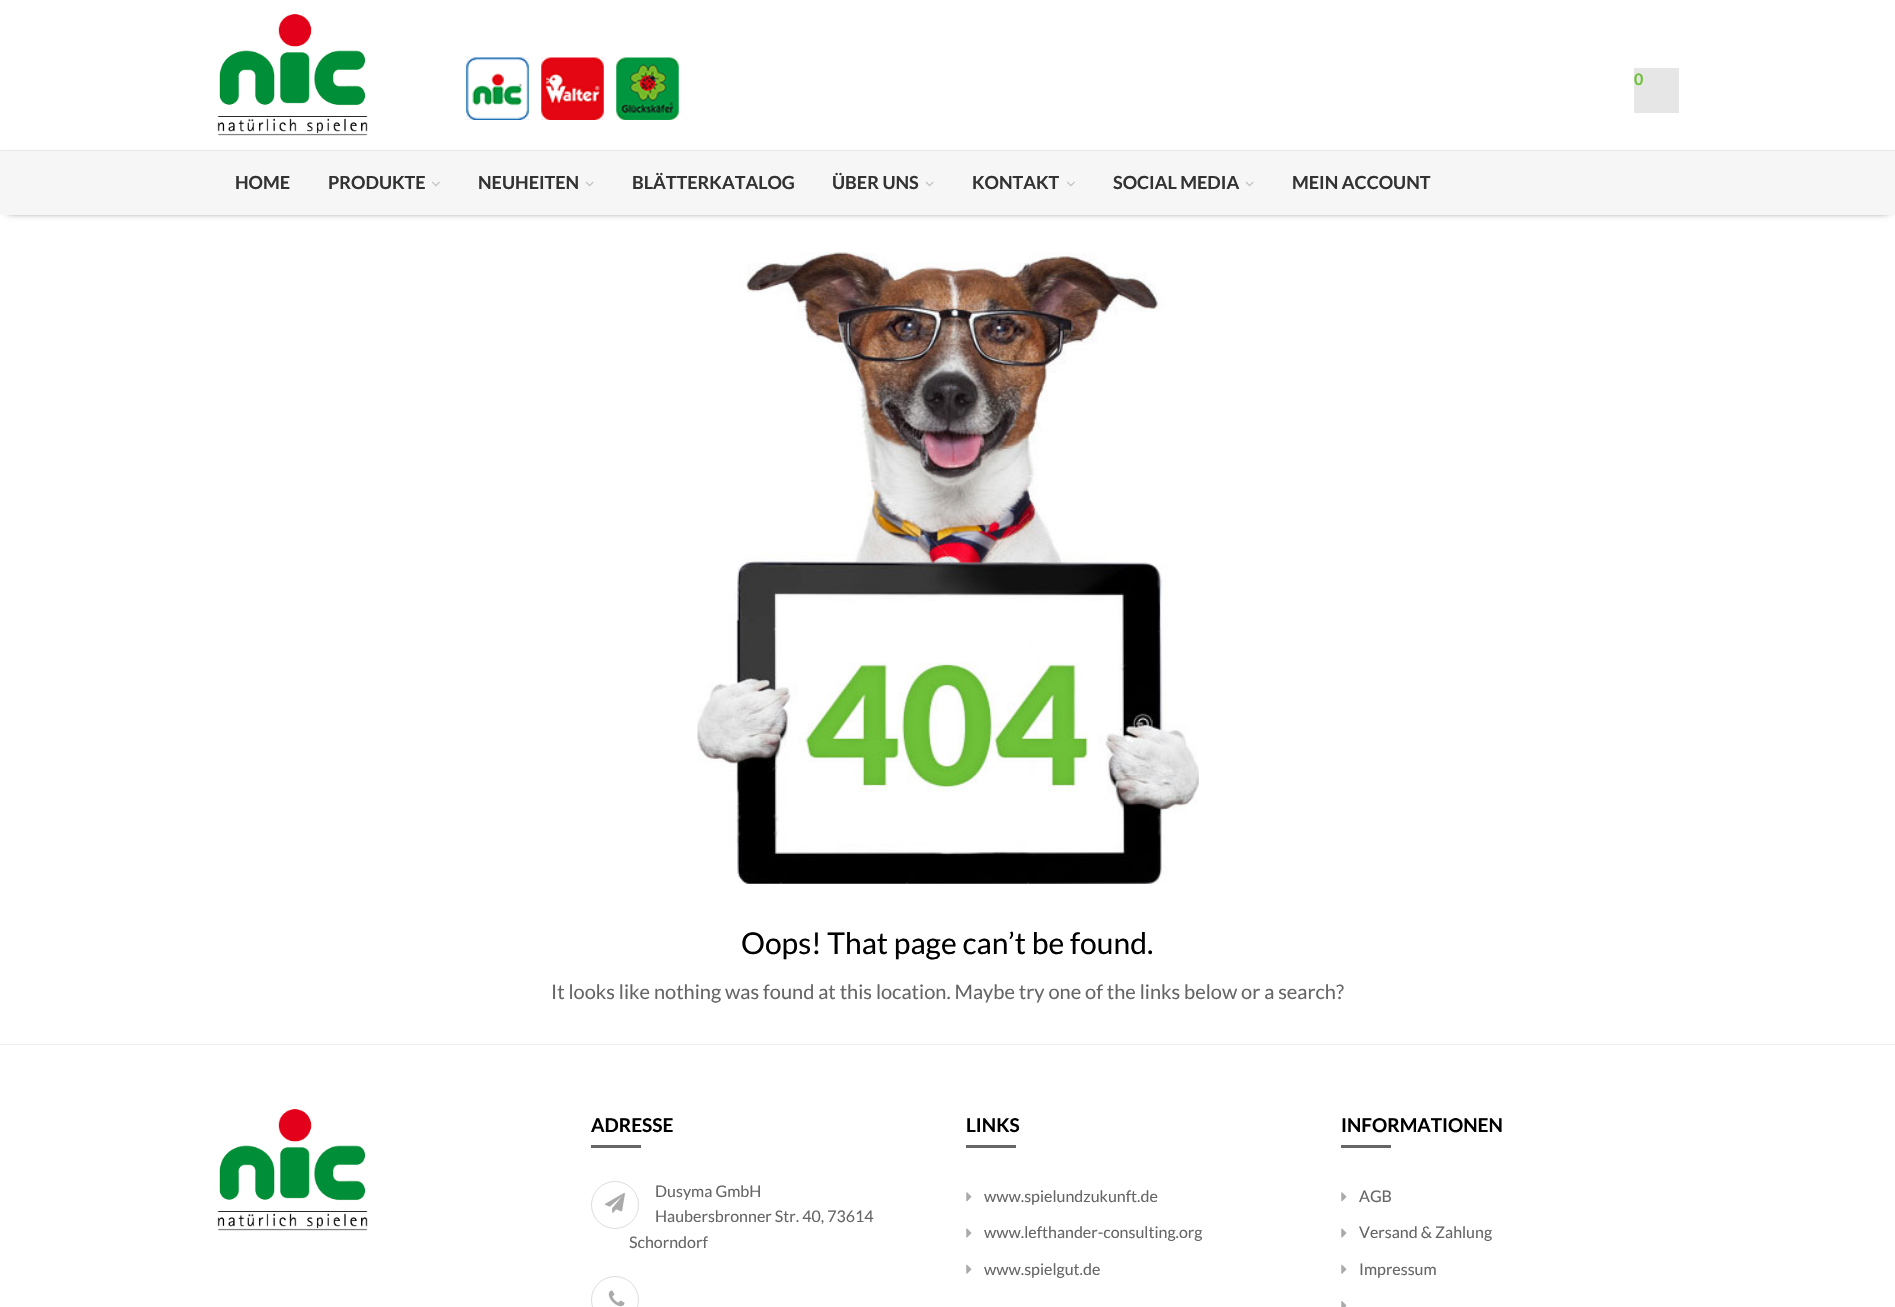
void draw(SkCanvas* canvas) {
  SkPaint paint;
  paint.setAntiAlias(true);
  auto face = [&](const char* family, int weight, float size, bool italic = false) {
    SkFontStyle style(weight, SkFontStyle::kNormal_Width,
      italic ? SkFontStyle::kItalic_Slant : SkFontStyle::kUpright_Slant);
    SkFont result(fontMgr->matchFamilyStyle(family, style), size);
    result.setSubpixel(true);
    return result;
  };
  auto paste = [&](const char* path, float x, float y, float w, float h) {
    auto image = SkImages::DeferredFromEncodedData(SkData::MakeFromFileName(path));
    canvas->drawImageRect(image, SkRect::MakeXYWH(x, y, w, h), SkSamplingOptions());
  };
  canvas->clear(0xffffffff);
  paste("img/1.png", 217, 14, 151, 122);
  paste("img/2.png", 466, 57, 63, 63);
  paste("img/3.png", 541, 57, 63, 63);
  paste("img/4.png", 616, 57, 63, 63);
  paint.setColor(0xffe6e6e6);
  canvas->drawRect(SkRect::MakeXYWH(1634, 68, 45, 45), paint);
  paint.setColor(0xff000000);
  paint.setMaskFilter(SkMaskFilter::MakeBlur(kNormal_SkBlurStyle, 4));
  canvas->drawRect(SkRect::MakeXYWH(8, 161, 1880, 50), paint);
  paint.setMaskFilter(nullptr);
  paint.setColor(0xfff6f6f6);
  canvas->drawRect(SkRect::MakeXYWH(0, 151, 1895, 64), paint);
  paint.setColor(0xffe8e8e8);
  canvas->drawRect(SkRect::MakeXYWH(0, 150, 1895, 1), paint);
  paste("img/5.png", 432, 181, 8, 6);
  paste("img/6.png", 585, 181, 9, 6);
  paste("img/6.png", 925, 181, 9, 6);
  paste("img/5.png", 1067, 181, 8, 6);
  paste("img/6.png", 1245, 181, 9, 6);
  paste("img/7.png", 697, 252, 502, 632);
  paint.setColor(0xffeeeeee);
  canvas->drawRect(SkRect::MakeXYWH(0, 1044, 1895, 1), paint);
  paste("img/1.png", 217, 1109, 151, 122);
  paint.setColor(0xff666666);
  canvas->drawRect(SkRect::MakeXYWH(591, 1145, 50, 3), paint);
  paint.setStroke(true);
  paint.setStrokeWidth(1);
  paint.setColor(0xffdddddd);
  canvas->drawCircle(615, 1205, 23.5f, paint);
  paste("img/8.png", 605, 1192, 20, 21);
  canvas->drawCircle(615, 1300, 23.5f, paint);
  paste("img/9.png", 608, 1290, 17, 17);
  paint.setStroke(false);
  paint.setColor(0xff666666);
  canvas->drawRect(SkRect::MakeXYWH(966, 1145, 50, 3), paint);
  paste("img/10.png", 966, 1192, 6, 10);
  paste("img/11.png", 966, 1228, 6, 10);
  paste("img/12.png", 966, 1264, 6, 10);
  canvas->drawRect(SkRect::MakeXYWH(1341, 1145, 50, 3), paint);
  paste("img/10.png", 1341, 1192, 6, 10);
  paste("img/11.png", 1341, 1228, 6, 10);
  paste("img/12.png", 1341, 1264, 6, 10);
  paste("img/13.png", 1341, 1301, 6, 6);
  auto f0 = face("Lato", 700, 16);
  paint.setColor(0xff6fc138);
  canvas->drawString("0", 1634, 85, f0, paint);
  auto f1 = face("Lato", 700, 18);
  paint.setColor(0xff333333);
  {
    const struct { const char* s; float x, y; } items[] = {
      {"HOME", 235, 189},
      {"PRODUKTE", 328, 189},
      {"NEUHEITEN", 478, 189},
      {"BLÄTTERKATALOG", 632, 189},
      {"ÜBER UNS", 832, 189},
      {"KONTAKT", 972, 189},
      {"SOCIAL MEDIA", 1113, 189},
      {"MEIN ACCOUNT", 1292, 189},
    };
    for (auto [s, x, y] : items) {
      canvas->drawString(s, x, y, f1, paint);
    }
  }
  auto f2 = face("Lato", 400, 30);
  paint.setColor(0xff000000);
  canvas->drawString("Oops! That page can’t be found.", 741, 954, f2, paint);
  auto f3 = face("Lato", 400, 20);
  paint.setColor(0xff666666);
  canvas->drawString("It looks like nothing was found at this location. Maybe try one of the links below or a search?", 551, 999, f3, paint);
  auto f4 = face("Lato", 700, 19);
  paint.setColor(0xff000000);
  canvas->drawString("ADRESSE", 591, 1132, f4, paint);
  auto f5 = face("Lato", 400, 16);
  paint.setColor(0xff666666);
  {
    const struct { const char* s; float x, y; } items[] = {
      {"Dusyma GmbH", 655, 1197},
      {"Haubersbronner Str. 40, 73614", 655, 1222},
      {"Schorndorf", 629, 1248},
    };
    for (auto [s, x, y] : items) {
      canvas->drawString(s, x, y, f5, paint);
    }
  }
  paint.setColor(0xff000000);
  canvas->drawString("LINKS", 966, 1132, f4, paint);
  paint.setColor(0xff666666);
  {
    const struct { const char* s; float x, y; } items[] = {
      {"www.spielundzukunft.de", 984, 1202},
      {"www.lefthander-consulting.org", 984, 1238},
      {"www.spielgut.de", 984, 1275},
    };
    for (auto [s, x, y] : items) {
      canvas->drawString(s, x, y, f5, paint);
    }
  }
  paint.setColor(0xff000000);
  canvas->drawString("INFORMATIONEN", 1341, 1132, f4, paint);
  paint.setColor(0xff666666);
  {
    const struct { const char* s; float x, y; } items[] = {
      {"AGB", 1359, 1202},
      {"Versand & Zahlung", 1359, 1238},
      {"Impressum", 1359, 1275},
    };
    for (auto [s, x, y] : items) {
      canvas->drawString(s, x, y, f5, paint);
    }
  }
}
